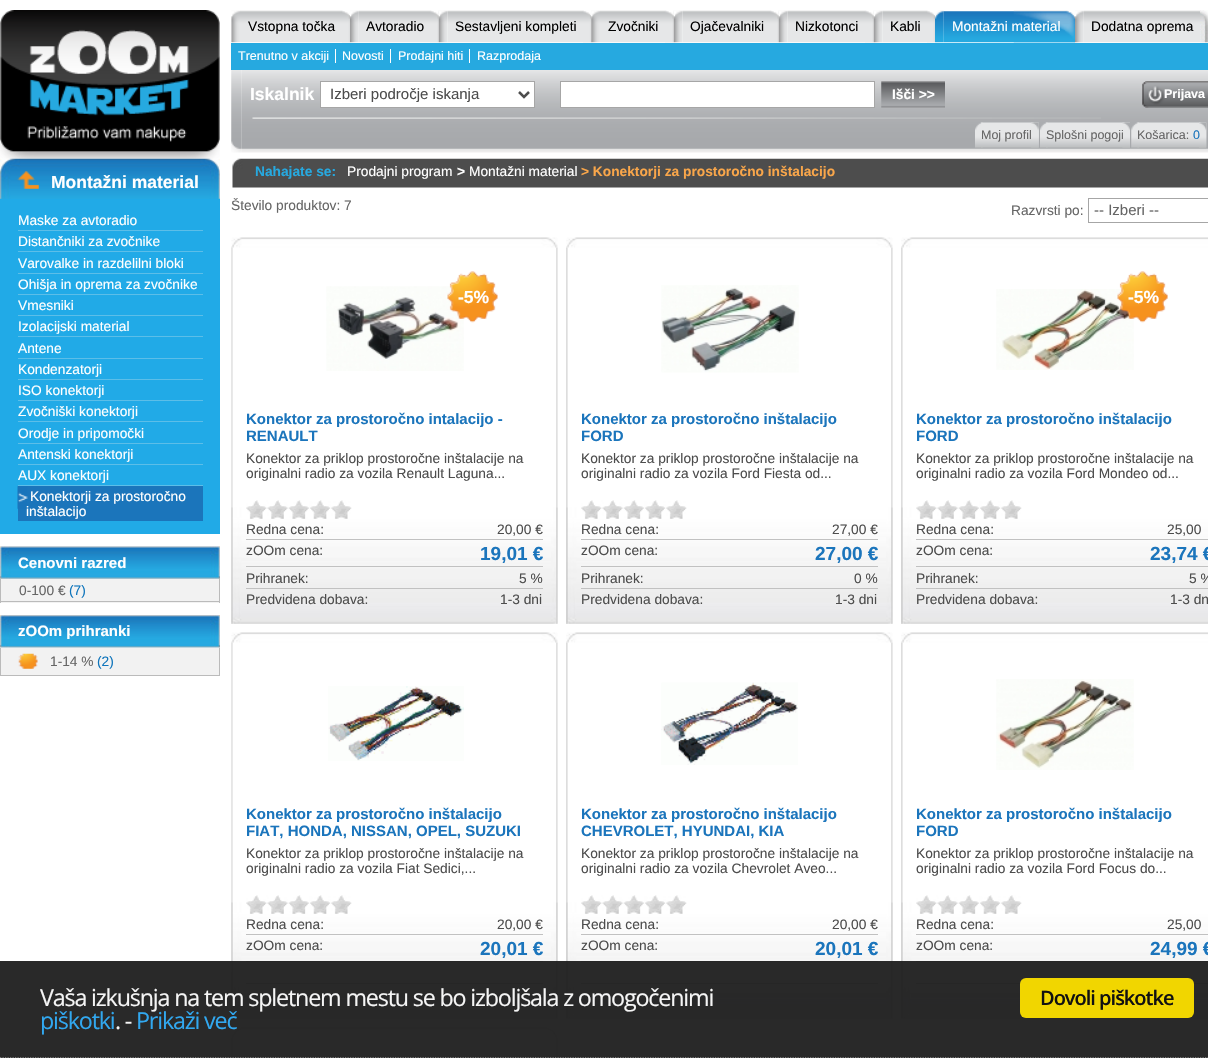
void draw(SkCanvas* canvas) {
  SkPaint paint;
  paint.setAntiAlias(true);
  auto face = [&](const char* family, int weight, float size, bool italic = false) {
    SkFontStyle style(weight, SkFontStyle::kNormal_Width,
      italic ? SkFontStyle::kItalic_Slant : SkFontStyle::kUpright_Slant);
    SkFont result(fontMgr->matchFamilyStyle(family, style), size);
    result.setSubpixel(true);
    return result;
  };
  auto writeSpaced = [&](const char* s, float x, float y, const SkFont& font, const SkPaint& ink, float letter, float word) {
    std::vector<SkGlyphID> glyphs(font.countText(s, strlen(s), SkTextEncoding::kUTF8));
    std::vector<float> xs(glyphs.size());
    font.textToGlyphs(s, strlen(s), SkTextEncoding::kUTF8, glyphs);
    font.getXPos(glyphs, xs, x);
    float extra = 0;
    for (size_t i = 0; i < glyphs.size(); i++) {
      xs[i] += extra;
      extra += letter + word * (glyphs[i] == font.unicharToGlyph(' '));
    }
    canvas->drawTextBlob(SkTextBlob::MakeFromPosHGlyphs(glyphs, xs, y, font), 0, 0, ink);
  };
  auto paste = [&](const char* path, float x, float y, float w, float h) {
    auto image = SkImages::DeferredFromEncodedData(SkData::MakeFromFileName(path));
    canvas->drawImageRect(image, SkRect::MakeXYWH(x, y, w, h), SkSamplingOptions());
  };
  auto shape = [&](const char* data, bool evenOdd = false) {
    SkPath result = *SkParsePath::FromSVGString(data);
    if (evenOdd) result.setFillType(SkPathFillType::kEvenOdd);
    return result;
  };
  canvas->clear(0xffffffff);
  paste("img/1.png", 0, 10, 220, 149);
  paste("img/2.png", 231, 10, 9, 33);
  paste("img/3.png", 240, 10, 110, 33);
  paste("img/4.png", 342, 10, 8, 33);
  paste("img/5.png", 350, 10, 9, 33);
  paste("img/6.png", 358, 10, 81, 33);
  paste("img/7.png", 430, 10, 9, 33);
  paste("img/8.png", 438, 10, 10, 33);
  paste("img/9.png", 447, 10, 145, 33);
  paste("img/10.png", 583, 10, 9, 33);
  paste("img/11.png", 591, 10, 9, 33);
  paste("img/12.png", 600, 10, 74, 33);
  paste("img/13.png", 665, 10, 9, 33);
  paste("img/14.png", 673, 10, 10, 33);
  paste("img/15.png", 682, 10, 97, 33);
  paste("img/13.png", 770, 10, 9, 33);
  paste("img/14.png", 778, 10, 10, 33);
  paste("img/16.png", 787, 10, 87, 33);
  paste("img/13.png", 865, 10, 9, 33);
  paste("img/14.png", 873, 10, 10, 33);
  paste("img/17.png", 882, 10, 53, 33);
  paste("img/4.png", 927, 10, 8, 33);
  paste("img/18.png", 935, 10, 9, 33);
  paste("img/19.png", 943, 11, 132, 32);
  paste("img/20.png", 1013, 10, 62, 33);
  paste("img/5.png", 1075, 10, 9, 33);
  paste("img/21.png", 1083, 10, 125, 33);
  paste("img/22.png", 1200, 10, 8, 33);
  {
    const struct { float x, y, w, h; SkColor color; } items[] = {
      {231, 43, 977, 27, 0xff26a9e0},
      {335, 49, 1, 14, 0xffffffff},
      {390, 49, 1, 14, 0xffffffff},
      {469, 49, 1, 14, 0xffffffff},
    };
    for (auto [x, y, w, h, color] : items) {
      paint.setColor(color);
      canvas->drawRect(SkRect::MakeXYWH(x, y, w, h), paint);
    }
  }
  paste("img/23.png", 231, 70, 11, 83);
  paste("img/24.png", 241, 70, 967, 83);
  canvas->drawRect(SkRect::MakeXYWH(320.5f, 81.5f, 214, 26), paint);
  paint.setStroke(true);
  paint.setStrokeWidth(1);
  paint.setColor(0xffa6a6a6);
  canvas->drawRect(SkRect::MakeXYWH(320.5f, 81.5f, 214, 26), paint);
  paint.setStrokeWidth(2.5f);
  paint.setColor(0xff4d4d4d);
  canvas->drawPath(shape("M519 92L524 97L529 92"), paint);
  paint.setStroke(false);
  paint.setColor(0xffffffff);
  canvas->drawRect(SkRect::MakeXYWH(560.5f, 81.5f, 314, 26), paint);
  paint.setStroke(true);
  paint.setStrokeWidth(1);
  paint.setColor(0xffa6a6a6);
  canvas->drawRect(SkRect::MakeXYWH(560.5f, 81.5f, 314, 26), paint);
  paste("img/25.png", 881, 81, 64, 27);
  paste("img/26.png", 1142, 81, 66, 27);
  paste("img/27.png", 1142, 81, 66, 27);
  paste("img/28.png", 252, 117, 849, 2);
  paste("img/29.png", 975, 122, 8, 26);
  paste("img/30.png", 981, 122, 58, 26);
  paste("img/31.png", 1031, 122, 8, 26);
  paste("img/29.png", 1040, 122, 8, 26);
  paste("img/32.png", 1046, 122, 84, 26);
  paste("img/33.png", 1122, 122, 8, 26);
  paste("img/34.png", 1131, 122, 8, 26);
  paste("img/35.png", 1137, 122, 70, 26);
  paste("img/36.png", 1199, 122, 8, 26);
  paste("img/37.png", 232, 158, 976, 30);
  paint.setStroke(false);
  paint.setColor(0xff21aae7);
  canvas->drawRect(SkRect::MakeXYWH(0, 198, 220, 336), paint);
  paste("img/38.png", 0, 158, 220, 41);
  paste("img/39.png", 17, 171, 22, 18);
  {
    const struct { float x, y, w, h; SkColor color; } items[] = {
      {18, 230, 185, 1, 0xff5cbee8},
      {18, 251, 185, 1, 0xff5cbee8},
      {18, 273, 185, 1, 0xff5cbee8},
      {18, 294, 185, 1, 0xff5cbee8},
      {18, 315, 185, 1, 0xff5cbee8},
      {18, 336, 185, 1, 0xff5cbee8},
      {18, 358, 185, 1, 0xff5cbee8},
      {18, 379, 185, 1, 0xff5cbee8},
      {18, 400, 185, 1, 0xff5cbee8},
      {18, 421, 185, 1, 0xff5cbee8},
      {18, 443, 185, 1, 0xff5cbee8},
      {18, 464, 185, 1, 0xff5cbee8},
      {18, 485, 185, 1, 0xff5cbee8},
      {18, 486, 185, 35, 0xff1b75bb},
    };
    for (auto [x, y, w, h, color] : items) {
      paint.setColor(color);
      canvas->drawRect(SkRect::MakeXYWH(x, y, w, h), paint);
    }
  }
  paste("img/40.png", 17, 486, 11, 23);
  paste("img/41.png", 0, 546, 220, 33);
  {
    const struct { float x, y, w, h; SkColor color; } items[] = {
      {1, 579, 218, 24, 0xfff2f2f2},
      {219, 579, 1, 24, 0xffbbbbbb},
      {0, 601, 220, 1, 0xffbbbbbb},
      {0, 579, 1, 24, 0xffbbbbbb},
    };
    for (auto [x, y, w, h, color] : items) {
      paint.setColor(color);
      canvas->drawRect(SkRect::MakeXYWH(x, y, w, h), paint);
    }
  }
  paste("img/42.png", 0, 615, 220, 33);
  {
    const struct { float x, y, w, h; SkColor color; } items[] = {
      {1, 648, 218, 27, 0xfff2f2f2},
      {219, 648, 1, 28, 0xffbbbbbb},
      {0, 675, 220, 1, 0xffbbbbbb},
      {0, 648, 1, 28, 0xffbbbbbb},
    };
    for (auto [x, y, w, h, color] : items) {
      paint.setColor(color);
      canvas->drawRect(SkRect::MakeXYWH(x, y, w, h), paint);
    }
  }
  paste("img/43.png", 18, 653, 20, 16);
  paint.setStroke(true);
  paint.setColor(0xffa6a6a6);
  canvas->drawRect(SkRect::MakeXYWH(1088.5f, 198.5f, 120, 24), paint);
  paste("img/44.png", 231, 237, 327, 11);
  paste("img/49.png", 231, 507, 327, 117);
  paste("img/45.png", 231, 247, 327, 377);
  paste("img/46.png", 326, 286, 138, 85);
  paste("img/47.png", 447, 271, 51, 52);
  paste("img/48.png", 246, 500, 106, 19);
  paint.setStroke(false);
  {
    const struct { float x, y, w, h; SkColor color; } items[] = {
      {246, 539, 297, 1, 0xffc1c1c1},
      {246, 566, 297, 1, 0xffc1c1c1},
      {246, 588, 297, 1, 0xffc1c1c1},
    };
    for (auto [x, y, w, h, color] : items) {
      paint.setColor(color);
      canvas->drawRect(SkRect::MakeXYWH(x, y, w, h), paint);
    }
  }
  paste("img/50.png", 566, 237, 327, 11);
  paste("img/53.png", 566, 507, 327, 117);
  paste("img/51.png", 566, 247, 327, 377);
  paste("img/52.png", 661, 285, 138, 88);
  paste("img/48.png", 581, 500, 106, 19);
  {
    const struct { float x, y, w, h; SkColor color; } items[] = {
      {581, 539, 297, 1, 0xffc1c1c1},
      {581, 566, 297, 1, 0xffc1c1c1},
      {581, 588, 297, 1, 0xffc1c1c1},
    };
    for (auto [x, y, w, h, color] : items) {
      paint.setColor(color);
      canvas->drawRect(SkRect::MakeXYWH(x, y, w, h), paint);
    }
  }
  paste("img/54.png", 901, 237, 307, 11);
  paste("img/58.png", 901, 507, 307, 117);
  paste("img/55.png", 901, 247, 2, 377);
  paste("img/56.png", 996, 289, 138, 81);
  paste("img/57.png", 1117, 271, 51, 52);
  paste("img/48.png", 916, 500, 106, 19);
  {
    const struct { float x, y, w, h; SkColor color; } items[] = {
      {916, 539, 292, 1, 0xffc1c1c1},
      {916, 566, 292, 1, 0xffc1c1c1},
      {916, 588, 292, 1, 0xffc1c1c1},
    };
    for (auto [x, y, w, h, color] : items) {
      paint.setColor(color);
      canvas->drawRect(SkRect::MakeXYWH(x, y, w, h), paint);
    }
  }
  paste("img/44.png", 231, 632, 327, 11);
  paste("img/49.png", 231, 902, 327, 117);
  paste("img/45.png", 231, 642, 327, 377);
  paste("img/59.png", 328, 686, 136, 75);
  paste("img/48.png", 246, 895, 106, 19);
  {
    const struct { float x, y, w, h; SkColor color; } items[] = {
      {246, 934, 297, 1, 0xffc1c1c1},
      {246, 961, 297, 1, 0xffc1c1c1},
      {246, 983, 297, 1, 0xffc1c1c1},
    };
    for (auto [x, y, w, h, color] : items) {
      paint.setColor(color);
      canvas->drawRect(SkRect::MakeXYWH(x, y, w, h), paint);
    }
  }
  paste("img/50.png", 566, 632, 327, 11);
  paste("img/53.png", 566, 902, 327, 117);
  paste("img/51.png", 566, 642, 327, 377);
  paste("img/60.png", 661, 682, 137, 83);
  paste("img/48.png", 581, 895, 106, 19);
  {
    const struct { float x, y, w, h; SkColor color; } items[] = {
      {581, 934, 297, 1, 0xffc1c1c1},
      {581, 961, 297, 1, 0xffc1c1c1},
      {581, 983, 297, 1, 0xffc1c1c1},
    };
    for (auto [x, y, w, h, color] : items) {
      paint.setColor(color);
      canvas->drawRect(SkRect::MakeXYWH(x, y, w, h), paint);
    }
  }
  paste("img/54.png", 901, 632, 307, 11);
  paste("img/58.png", 901, 902, 307, 117);
  paste("img/55.png", 901, 642, 2, 377);
  paste("img/61.png", 996, 679, 138, 91);
  paste("img/48.png", 916, 895, 106, 19);
  {
    const struct { float x, y, w, h; SkColor color; } items[] = {
      {916, 934, 292, 1, 0xffc1c1c1},
      {916, 961, 292, 1, 0xffc1c1c1},
      {916, 983, 292, 1, 0xffc1c1c1},
    };
    for (auto [x, y, w, h, color] : items) {
      paint.setColor(color);
      canvas->drawRect(SkRect::MakeXYWH(x, y, w, h), paint);
    }
  }
  paste("img/44.png", 231, 1027, 327, 11);
  paste("img/62.png", 231, 1037, 327, 21);
  paint.setColor(0xf21d1d1d);
  canvas->drawRect(SkRect::MakeXYWH(0, 961, 1208, 97), paint);
  paint.setStroke(true);
  paint.setStrokeWidth(1.2f);
  paint.setColor(0xffcccccc);
  paint.setPathEffect(SkDashPathEffect::Make({{1.25f, 1.25f}}, 0));
  canvas->drawPath(shape("M0 1058H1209"), paint);
  paint.setPathEffect(nullptr);
  paint.setStroke(false);
  paint.setColor(0xfff1d600);
  canvas->drawRoundRect(SkRect::MakeXYWH(1020, 978, 174, 40), 6, 6, paint);
  auto f0 = face("Liberation Sans", 400, 13.75f);
  paint.setColor(0xff000000);
  {
    const struct { const char* s; float x, y; } items[] = {
      {"Vstopna točka", 248, 31},
      {"Avtoradio", 366, 31},
      {"Sestavljeni kompleti", 455, 31},
      {"Zvočniki", 608, 31},
      {"Ojačevalniki", 690, 31},
      {"Nizkotonci", 795, 31},
      {"Kabli", 890, 31},
    };
    for (auto [s, x, y] : items) {
      canvas->drawString(s, x, y, f0, paint);
    }
  }
  paint.setColor(0xffffffff);
  canvas->drawString("Montažni material", 952, 31, f0, paint);
  paint.setColor(0xff000000);
  canvas->drawString("Dodatna oprema", 1091, 31, f0, paint);
  auto f1 = face("Liberation Sans", 400, 12.5f);
  paint.setColor(0xffffffff);
  {
    const struct { const char* s; float x, y; } items[] = {
      {"Trenutno v akciji", 238, 60},
      {"Novosti", 342, 60},
      {"Prodajni hiti", 398, 60},
      {"Razprodaja", 477, 60},
    };
    for (auto [s, x, y] : items) {
      canvas->drawString(s, x, y, f1, paint);
    }
  }
  auto f2 = face("Liberation Sans", 700, 17.5f);
  canvas->drawString("Iskalnik", 250, 100, f2, paint);
  auto f3 = face("Liberation Sans", 400, 15);
  paint.setColor(0xff4d4d4d);
  canvas->drawString("Izberi področje iskanja", 330, 99, f3, paint);
  auto f4 = face("Liberation Sans", 700, 13.75f);
  paint.setColor(0xffffffff);
  canvas->drawString("Išči >>", 892, 99, f4, paint);
  auto f5 = face("Liberation Sans", 700, 12.5f);
  canvas->drawString("Prijava", 1164, 98, f5, paint);
  paint.setColor(0xff666666);
  {
    const struct { const char* s; float x, y; } items[] = {
      {"Moj profil", 981, 139},
      {"Splošni pogoji", 1046, 139},
      {"Košarica:", 1137, 139},
    };
    for (auto [s, x, y] : items) {
      canvas->drawString(s, x, y, f1, paint);
    }
  }
  paint.setColor(0xff1b75bc);
  canvas->drawString("0", 1193, 139, f1, paint);
  paint.setColor(0xff26a9e0);
  canvas->drawString("Nahajate se:", 255, 176, f4, paint);
  paint.setColor(0xffffffff);
  canvas->drawString("Prodajni program", 347, 176, f0, paint);
  canvas->drawString(">", 457, 176, f4, paint);
  canvas->drawString("Montažni material", 469, 176, f0, paint);
  paint.setColor(0xfff9a64a);
  canvas->drawString("> Konektorji za prostoročno inštalacijo", 581, 176, f4, paint);
  paint.setColor(0xffffffff);
  canvas->drawString("Montažni material", 51, 188, f2, paint);
  {
    const struct { const char* s; float x, y; } items[] = {
      {"Maske za avtoradio", 18, 225},
      {"Distančniki za zvočnike", 18, 246},
      {"Varovalke in razdelilni bloki", 18, 268},
      {"Ohišja in oprema za zvočnike", 18, 289},
      {"Vmesniki", 18, 310},
      {"Izolacijski material", 18, 331},
      {"Antene", 18, 353},
      {"Kondenzatorji", 18, 374},
      {"ISO konektorji", 18, 395},
      {"Zvočniški konektorji", 18, 416},
      {"Orodje in pripomočki", 18, 438},
      {"Antenski konektorji", 18, 459},
      {"AUX konektorji", 18, 480},
      {"Konektorji za prostoročno", 30, 501},
      {"inštalacijo", 26, 516},
    };
    for (auto [s, x, y] : items) {
      canvas->drawString(s, x, y, f0, paint);
    }
  }
  auto f6 = face("Liberation Sans", 700, 15);
  canvas->drawString("Cenovni razred", 18, 568, f6, paint);
  paint.setColor(0xff666666);
  canvas->drawString("0-100 €", 19, 595, f0, paint);
  paint.setColor(0xff0f75bc);
  canvas->drawString("(7)", 69, 595, f0, paint);
  paint.setColor(0xffffffff);
  canvas->drawString("zOOm prihranki", 18, 636, f6, paint);
  paint.setColor(0xff666666);
  canvas->drawString("1-14 %", 50, 666, f0, paint);
  paint.setColor(0xff0f75bc);
  canvas->drawString("(2)", 97, 666, f0, paint);
  paint.setColor(0xff666666);
  canvas->drawString("Število produktov: 7", 231, 210, f0, paint);
  canvas->drawString("Razvrsti po:", 1011, 215, f0, paint);
  canvas->drawString("-- Izberi --", 1094, 215, f3, paint);
  paint.setColor(0xffffffff);
  canvas->drawString("-5%", 458, 303, f2, paint);
  paint.setColor(0xff1b75bc);
  canvas->drawString("Konektor za prostoročno intalacijo -", 246, 424, f6, paint);
  canvas->drawString("RENAULT", 246, 441, f6, paint);
  paint.setColor(0xff4d4d4d);
  {
    const struct { const char* s; float x, y; } items[] = {
      {"Konektor za priklop prostoročne inštalacije na", 246, 463},
      {"originalni radio za vozila Renault Laguna...", 246, 478},
      {"Redna cena:", 246, 534},
      {"20,00 €", 497, 534},
      {"zOOm cena:", 246, 555},
    };
    for (auto [s, x, y] : items) {
      canvas->drawString(s, x, y, f0, paint);
    }
  }
  auto f7 = face("Liberation Sans", 700, 19);
  paint.setColor(0xff1b75bc);
  canvas->drawString("19,01 €", 480, 560, f7, paint);
  paint.setColor(0xff4d4d4d);
  {
    const struct { const char* s; float x, y; } items[] = {
      {"Prihranek:", 246, 583},
      {"5 %", 519, 583},
      {"Predvidena dobava:", 246, 604},
      {"1-3 dni", 500, 604},
    };
    for (auto [s, x, y] : items) {
      canvas->drawString(s, x, y, f0, paint);
    }
  }
  paint.setColor(0xff1b75bc);
  canvas->drawString("Konektor za prostoročno inštalacijo", 581, 424, f6, paint);
  canvas->drawString("FORD", 581, 441, f6, paint);
  paint.setColor(0xff4d4d4d);
  {
    const struct { const char* s; float x, y; } items[] = {
      {"Konektor za priklop prostoročne inštalacije na", 581, 463},
      {"originalni radio za vozila Ford Fiesta od...", 581, 478},
      {"Redna cena:", 581, 534},
      {"27,00 €", 832, 534},
      {"zOOm cena:", 581, 555},
    };
    for (auto [s, x, y] : items) {
      canvas->drawString(s, x, y, f0, paint);
    }
  }
  paint.setColor(0xff1b75bc);
  canvas->drawString("27,00 €", 815, 560, f7, paint);
  paint.setColor(0xff4d4d4d);
  {
    const struct { const char* s; float x, y; } items[] = {
      {"Prihranek:", 581, 583},
      {"0 %", 854, 583},
      {"Predvidena dobava:", 581, 604},
      {"1-3 dni", 835, 604},
    };
    for (auto [s, x, y] : items) {
      canvas->drawString(s, x, y, f0, paint);
    }
  }
  paint.setColor(0xffffffff);
  canvas->drawString("-5%", 1128, 303, f2, paint);
  paint.setColor(0xff1b75bc);
  canvas->drawString("Konektor za prostoročno inštalacijo", 916, 424, f6, paint);
  canvas->drawString("FORD", 916, 441, f6, paint);
  paint.setColor(0xff4d4d4d);
  {
    const struct { const char* s; float x, y; } items[] = {
      {"Konektor za priklop prostoročne inštalacije na", 916, 463},
      {"originalni radio za vozila Ford Mondeo od...", 916, 478},
      {"Redna cena:", 916, 534},
      {"25,00", 1167, 534},
      {"zOOm cena:", 916, 555},
    };
    for (auto [s, x, y] : items) {
      canvas->drawString(s, x, y, f0, paint);
    }
  }
  paint.setColor(0xff1b75bc);
  canvas->drawString("23,74 €", 1150, 560, f7, paint);
  paint.setColor(0xff4d4d4d);
  {
    const struct { const char* s; float x, y; } items[] = {
      {"Prihranek:", 916, 583},
      {"5 %", 1189, 583},
      {"Predvidena dobava:", 916, 604},
      {"1-3 dn", 1170, 604},
    };
    for (auto [s, x, y] : items) {
      canvas->drawString(s, x, y, f0, paint);
    }
  }
  paint.setColor(0xff1b75bc);
  canvas->drawString("Konektor za prostoročno inštalacijo", 246, 819, f6, paint);
  canvas->drawString("FIAT, HONDA, NISSAN, OPEL, SUZUKI", 246, 836, f6, paint);
  paint.setColor(0xff4d4d4d);
  {
    const struct { const char* s; float x, y; } items[] = {
      {"Konektor za priklop prostoročne inštalacije na", 246, 858},
      {"originalni radio za vozila Fiat Sedici,...", 246, 873},
      {"Redna cena:", 246, 929},
      {"20,00 €", 497, 929},
      {"zOOm cena:", 246, 950},
    };
    for (auto [s, x, y] : items) {
      canvas->drawString(s, x, y, f0, paint);
    }
  }
  paint.setColor(0xff1b75bc);
  canvas->drawString("20,01 €", 480, 955, f7, paint);
  canvas->drawString("Konektor za prostoročno inštalacijo", 581, 819, f6, paint);
  canvas->drawString("CHEVROLET, HYUNDAI, KIA", 581, 836, f6, paint);
  paint.setColor(0xff4d4d4d);
  {
    const struct { const char* s; float x, y; } items[] = {
      {"Konektor za priklop prostoročne inštalacije na", 581, 858},
      {"originalni radio za vozila Chevrolet Aveo...", 581, 873},
      {"Redna cena:", 581, 929},
      {"20,00 €", 832, 929},
      {"zOOm cena:", 581, 950},
    };
    for (auto [s, x, y] : items) {
      canvas->drawString(s, x, y, f0, paint);
    }
  }
  paint.setColor(0xff1b75bc);
  canvas->drawString("20,01 €", 815, 955, f7, paint);
  canvas->drawString("Konektor za prostoročno inštalacijo", 916, 819, f6, paint);
  canvas->drawString("FORD", 916, 836, f6, paint);
  paint.setColor(0xff4d4d4d);
  {
    const struct { const char* s; float x, y; } items[] = {
      {"Konektor za priklop prostoročne inštalacije na", 916, 858},
      {"originalni radio za vozila Ford Focus do...", 916, 873},
      {"Redna cena:", 916, 929},
      {"25,00", 1167, 929},
      {"zOOm cena:", 916, 950},
    };
    for (auto [s, x, y] : items) {
      canvas->drawString(s, x, y, f0, paint);
    }
  }
  paint.setColor(0xff1b75bc);
  canvas->drawString("24,99 €", 1150, 955, f7, paint);
  auto f8 = face("Open Sans", 400, 23.3f);
  paint.setColor(0xfff5f5f5);
  writeSpaced("Vaša izkušnja na tem spletnem mestu se bo izboljšala z omogočenimi", 40, 1006, f8, paint, -1.17f, 0);
  paint.setColor(0xff31a8f0);
  writeSpaced("piškotki", 40, 1029, f8, paint, -1.17f, 0);
  paint.setColor(0xfff5f5f5);
  writeSpaced(". -", 115, 1029, f8, paint, -1.17f, 0);
  paint.setColor(0xff31a8f0);
  writeSpaced("Prikaži več", 136, 1029, f8, paint, -1.17f, 0);
  auto f9 = face("Open Sans", 600, 20);
  paint.setColor(0xff111111);
  writeSpaced("Dovoli piškotke", 1040, 1005, f9, paint, -1, 0);
}
